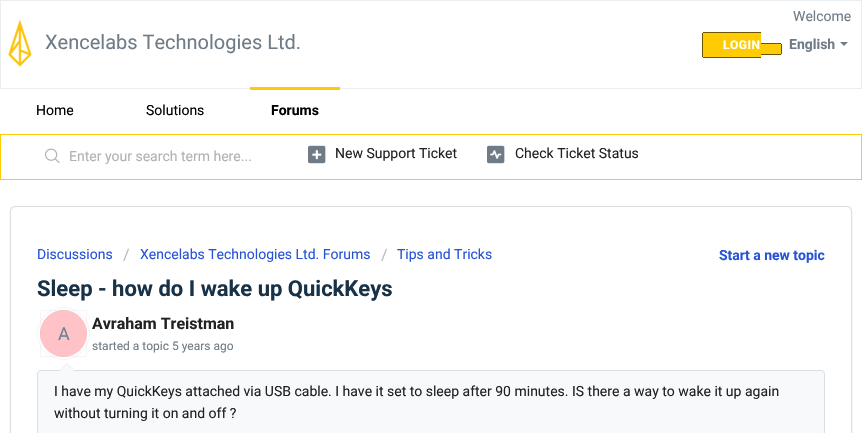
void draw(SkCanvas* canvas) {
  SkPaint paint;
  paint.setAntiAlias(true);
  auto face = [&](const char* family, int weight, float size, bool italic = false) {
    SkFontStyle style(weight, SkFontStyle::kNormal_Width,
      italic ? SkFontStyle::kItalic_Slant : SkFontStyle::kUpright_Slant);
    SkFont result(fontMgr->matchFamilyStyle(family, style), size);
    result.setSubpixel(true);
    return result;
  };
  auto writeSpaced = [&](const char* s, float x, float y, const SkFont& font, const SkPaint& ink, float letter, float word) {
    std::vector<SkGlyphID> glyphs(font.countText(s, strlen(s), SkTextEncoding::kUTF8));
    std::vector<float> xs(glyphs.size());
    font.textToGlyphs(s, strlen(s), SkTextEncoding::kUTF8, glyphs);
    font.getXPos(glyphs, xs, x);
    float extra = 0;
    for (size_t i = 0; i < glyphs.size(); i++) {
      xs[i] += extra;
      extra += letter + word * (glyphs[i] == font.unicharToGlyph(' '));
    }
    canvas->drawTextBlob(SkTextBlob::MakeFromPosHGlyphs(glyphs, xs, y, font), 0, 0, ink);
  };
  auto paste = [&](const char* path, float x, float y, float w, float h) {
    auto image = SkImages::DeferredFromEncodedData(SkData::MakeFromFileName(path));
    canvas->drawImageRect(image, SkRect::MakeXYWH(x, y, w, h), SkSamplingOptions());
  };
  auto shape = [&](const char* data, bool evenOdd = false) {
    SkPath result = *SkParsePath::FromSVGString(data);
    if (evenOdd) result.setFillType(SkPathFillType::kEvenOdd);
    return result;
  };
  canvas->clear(0xffffffff);
  paint.setStroke(true);
  paint.setStrokeWidth(1);
  paint.setColor(0xffebeef0);
  canvas->drawRect(SkRect::MakeXYWH(0.5f, 0.5f, 861, 88), paint);
  paste("img/1.png", 8, 20, 24, 47);
  paint.setStroke(false);
  paint.setColor(0xffffcb05);
  canvas->drawPath(shape("M704 32H761V58H704C703 58 702 57 702 56V34C702 33 703 32 704 32Z"), paint);
  {
    const struct { float x, y, w, h; SkColor color; } items[] = {
      {703, 32, 58, 1, 0xff6b5500},
      {703, 57, 58, 1, 0xff6b5500},
      {702, 33, 1, 24, 0xff6b5500},
    };
    for (auto [x, y, w, h, color] : items) {
      paint.setColor(color);
      canvas->drawRect(SkRect::MakeXYWH(x, y, w, h), paint);
    }
  }
  paint.setColor(0xffffcb05);
  canvas->drawPath(shape("M761 43H780C781 43 782 44 782 45V53C782 54 781 55 780 55H761Z"), paint);
  {
    const struct { float x, y, w, h; SkColor color; } items[] = {
      {761, 43, 20, 1, 0xff6b5500},
      {781, 44, 1, 10, 0xff6b5500},
      {761, 54, 20, 1, 0xff6b5500},
    };
    for (auto [x, y, w, h, color] : items) {
      paint.setColor(color);
      canvas->drawRect(SkRect::MakeXYWH(x, y, w, h), paint);
    }
  }
  paint.setColor(0xff6f7c87);
  canvas->drawPath(shape("M840 42H848L844 46Z"), paint);
  paint.setColor(0xffffcb05);
  canvas->drawRect(SkRect::MakeXYWH(250, 87, 90, 3), paint);
  paint.setStroke(true);
  canvas->drawRect(SkRect::MakeXYWH(0.5f, 134.5f, 861, 45), paint);
  paste("img/2.png", 45, 148, 15, 15);
  paste("img/3.png", 308, 145, 18, 19);
  paste("img/4.png", 487, 145, 18, 19);
  paint.setStroke(false);
  paint.setColor(0xfff8f9fa);
  canvas->drawRect(SkRect::MakeXYWH(10, 206, 842, 6), paint);
  paint.setColor(0x263f3f44);
  paint.setMaskFilter(SkMaskFilter::MakeBlur(kNormal_SkBlurStyle, 1));
  canvas->drawRoundRect(SkRect::MakeXYWH(10, 207, 842, 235), 6, 6, paint);
  paint.setMaskFilter(nullptr);
  paint.setColor(0xffffffff);
  canvas->drawRoundRect(SkRect::MakeXYWH(10.5f, 206.5f, 841, 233), 5.5f, 5.5f, paint);
  paint.setStroke(true);
  paint.setColor(0xffdadfe3);
  canvas->drawRoundRect(SkRect::MakeXYWH(10.5f, 206.5f, 841, 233), 5.5f, 5.5f, paint);
  paint.setColor(0xfff3f5f7);
  canvas->drawCircle(63.5f, 333.5f, 26, paint);
  paint.setStroke(false);
  paint.setColor(0xffffc2c6);
  canvas->drawCircle(63.5f, 333.5f, 23.5f, paint);
  paint.setStroke(true);
  paint.setColor(0x0a000000);
  canvas->drawRect(SkRect::MakeXYWH(40.5f, 310.5f, 46, 46), paint);
  paint.setStroke(false);
  paint.setColor(0xfff8f9fa);
  canvas->drawRoundRect(SkRect::MakeXYWH(37.5f, 370.5f, 787, 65), 3.5f, 3.5f, paint);
  paint.setStroke(true);
  paint.setColor(0xffdadfe3);
  canvas->drawRoundRect(SkRect::MakeXYWH(37.5f, 370.5f, 787, 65), 3.5f, 3.5f, paint);
  paint.setStroke(false);
  paint.setColor(0xffebebeb);
  canvas->drawPath(shape("M75 371H59L67 363Z"), paint);
  paint.setColor(0xfffafafa);
  canvas->drawPath(shape("M74 371H60L67 364Z"), paint);
  auto f0 = face("Roboto", 400, 20);
  paint.setColor(0xff6f7c87);
  canvas->drawString("Xencelabs Technologies Ltd.", 45, 49, f0, paint);
  auto f1 = face("Roboto", 400, 14);
  canvas->drawString("Welcome", 793, 21, f1, paint);
  auto f2 = face("Roboto", 700, 12);
  paint.setColor(0xffffffff);
  writeSpaced("LOGIN", 723, 49, f2, paint, 0.5f, 0);
  auto f3 = face("Roboto", 700, 14);
  paint.setColor(0xff6f7c87);
  canvas->drawString("English", 789, 49, f3, paint);
  paint.setColor(0xff000000);
  canvas->drawString("Home", 36, 115, f1, paint);
  canvas->drawString("Solutions", 146, 115, f1, paint);
  canvas->drawString("Forums", 271, 115, f3, paint);
  paint.setColor(0xffb2b2b2);
  canvas->drawString("Enter your search term here...", 69, 161, f1, paint);
  paint.setColor(0xff212322);
  canvas->drawString("New Support Ticket", 335, 158, f1, paint);
  canvas->drawString("Check Ticket Status", 515, 158, f1, paint);
  paint.setColor(0xff2753d7);
  canvas->drawString("Discussions", 37, 259, f1, paint);
  auto f4 = face("Roboto", 400, 16);
  paint.setColor(0xffbbbbbb);
  canvas->drawString("/", 123, 260, f4, paint);
  paint.setColor(0xff2753d7);
  canvas->drawString("Xencelabs Technologies Ltd. Forums", 140, 259, f1, paint);
  paint.setColor(0xffbbbbbb);
  canvas->drawString("/", 381, 260, f4, paint);
  paint.setColor(0xff2753d7);
  canvas->drawString("Tips and Tricks", 397, 259, f1, paint);
  canvas->drawString("Start a new topic", 719, 260, f3, paint);
  auto f5 = face("Roboto", 700, 22);
  paint.setColor(0xff183247);
  canvas->drawString("Sleep - how do I wake up QuickKeys", 37, 296, f5, paint);
  auto f6 = face("Roboto", 400, 18);
  paint.setColor(0xff638699);
  canvas->drawString("A", 58, 340, f6, paint);
  auto f7 = face("Roboto", 700, 16);
  paint.setColor(0xff212322);
  canvas->drawString("Avraham Treistman", 92, 329, f7, paint);
  auto f8 = face("Roboto", 400, 12);
  paint.setColor(0xff6f7c87);
  canvas->drawString("started a topic 5 years ago", 92, 350, f8, paint);
  paint.setColor(0xff212322);
  canvas->drawString("I have my QuickKeys attached via USB cable. I have it set to sleep after 90 minutes. IS there a way to wake it up again", 54, 396, f1, paint);
  canvas->drawString("without turning it on and off ?", 54, 418, f1, paint);
}
